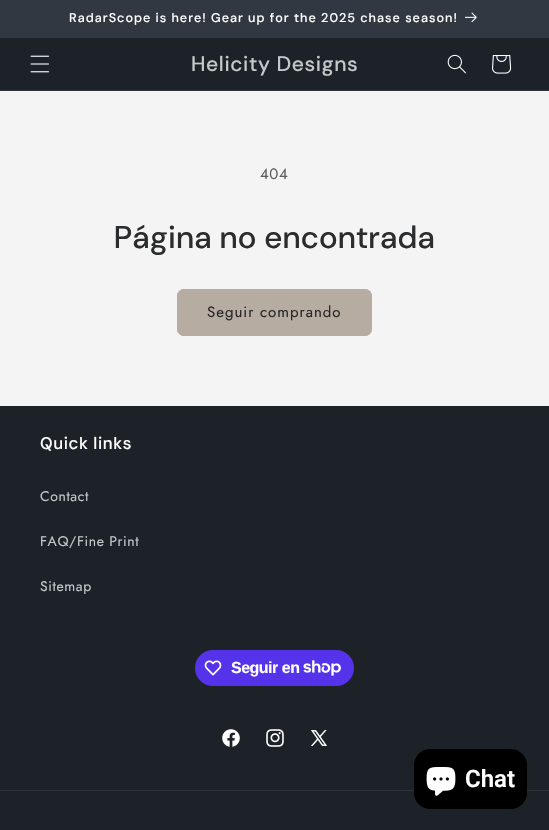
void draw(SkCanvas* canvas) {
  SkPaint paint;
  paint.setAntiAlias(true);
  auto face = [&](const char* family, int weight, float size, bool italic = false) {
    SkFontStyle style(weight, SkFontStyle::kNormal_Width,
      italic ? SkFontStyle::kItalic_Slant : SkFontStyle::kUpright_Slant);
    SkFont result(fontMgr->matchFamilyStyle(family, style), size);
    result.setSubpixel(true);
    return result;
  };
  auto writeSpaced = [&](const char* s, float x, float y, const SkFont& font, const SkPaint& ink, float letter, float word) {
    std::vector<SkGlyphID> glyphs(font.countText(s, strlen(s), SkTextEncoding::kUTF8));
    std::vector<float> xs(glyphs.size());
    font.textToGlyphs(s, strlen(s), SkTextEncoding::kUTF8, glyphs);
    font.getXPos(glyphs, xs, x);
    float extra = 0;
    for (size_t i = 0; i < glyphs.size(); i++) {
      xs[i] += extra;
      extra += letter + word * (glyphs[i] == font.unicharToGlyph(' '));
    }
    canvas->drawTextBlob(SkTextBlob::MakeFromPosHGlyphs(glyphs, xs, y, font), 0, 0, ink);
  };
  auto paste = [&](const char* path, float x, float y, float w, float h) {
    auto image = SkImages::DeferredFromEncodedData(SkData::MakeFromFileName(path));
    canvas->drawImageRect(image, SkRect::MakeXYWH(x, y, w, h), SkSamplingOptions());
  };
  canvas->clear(0xfff4f4f4);
  paint.setColor(0xff323841);
  canvas->drawRect(SkRect::MakeXYWH(0, 0, 549, 38), paint);
  paste("img/1.png", 465, 12, 12, 11);
  paint.setColor(0xff1c2228);
  canvas->drawRect(SkRect::MakeXYWH(0, 38, 549, 52), paint);
  paint.setColor(0xff2e3439);
  canvas->drawRect(SkRect::MakeXYWH(0, 90, 549, 1), paint);
  paste("img/2.png", 30, 55, 20, 18);
  paste("img/3.png", 447, 54, 19, 20);
  paste("img/4.png", 492, 55, 20, 19);
  paint.setColor(0xffb7aca2);
  canvas->drawRoundRect(SkRect::MakeXYWH(177, 289, 195, 47), 7, 7, paint);
  paint.setStroke(true);
  paint.setStrokeWidth(1);
  canvas->drawRoundRect(SkRect::MakeXYWH(177.5f, 289.5f, 194, 46), 6.5f, 6.5f, paint);
  paint.setStroke(false);
  paint.setColor(0xff1c2228);
  canvas->drawRect(SkRect::MakeXYWH(0, 406, 549, 424), paint);
  paint.setColor(0xff5433eb);
  canvas->drawRoundRect(SkRect::MakeXYWH(195, 650, 159, 36), 18, 18, paint);
  paste("img/5.png", 204, 660, 18, 16);
  paste("img/6.png", 303, 660, 38, 16);
  paste("img/7.png", 222, 729, 18, 18);
  paste("img/8.png", 266, 729, 18, 18);
  paste("img/9.png", 310, 730, 17, 16);
  paint.setColor(0xff2e3439);
  canvas->drawRect(SkRect::MakeXYWH(0, 790, 549, 1), paint);
  paint.setColor(0xff000000);
  canvas->drawRoundRect(SkRect::MakeXYWH(414, 749, 113, 60), 16, 16, paint);
  paste("img/10.png", 426, 767, 30, 29);
  auto f0 = face("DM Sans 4", 500, 12.6f);
  paint.setColor(0xffffffff);
  writeSpaced("RadarScope is here! Gear up for the 2025 chase season!", 69, 22, f0, paint, 1, 0);
  auto f1 = face("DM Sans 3", 500, 21);
  paint.setColor(0xffc6c8c9);
  writeSpaced("Helicity Designs", 191, 71, f1, paint, 0.6f, 0);
  auto f2 = face("Jost", 400, 15);
  paint.setColor(0xff5d5e5f);
  writeSpaced("404", 260, 179, f2, paint, 0.6f, 0);
  auto f3 = face("DM Sans", 500, 31.5f);
  paint.setColor(0xff2b2c2d);
  writeSpaced("Página no encontrada", 114, 248, f3, paint, 0.6f, 0);
  paint.setColor(0xff262626);
  writeSpaced("Seguir comprando", 207, 317, f2, paint, 1, 0);
  auto f4 = face("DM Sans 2", 500, 16.75f);
  paint.setColor(0xffffffff);
  writeSpaced("Quick links", 40, 449, f4, paint, 0.6f, 0);
  auto f5 = face("Jost", 400, 14);
  paint.setColor(0xffc6c8c9);
  {
    const struct { const char* s; float x, y; } items[] = {
      {"Contact", 40, 501},
      {"FAQ/Fine Print", 40, 546},
      {"Sitemap", 40, 591},
    };
    for (auto [s, x, y] : items) {
      writeSpaced(s, x, y, f5, paint, 0.6f, 0);
    }
  }
  auto f6 = face("Liberation Sans", 700, 16);
  paint.setColor(0xffffffff);
  writeSpaced("Seguir en", 231, 673, f6, paint, -0.5f, 0);
  auto f7 = face("Roboto", 600, 24);
  canvas->drawString("Chat", 465, 787, f7, paint);
}
